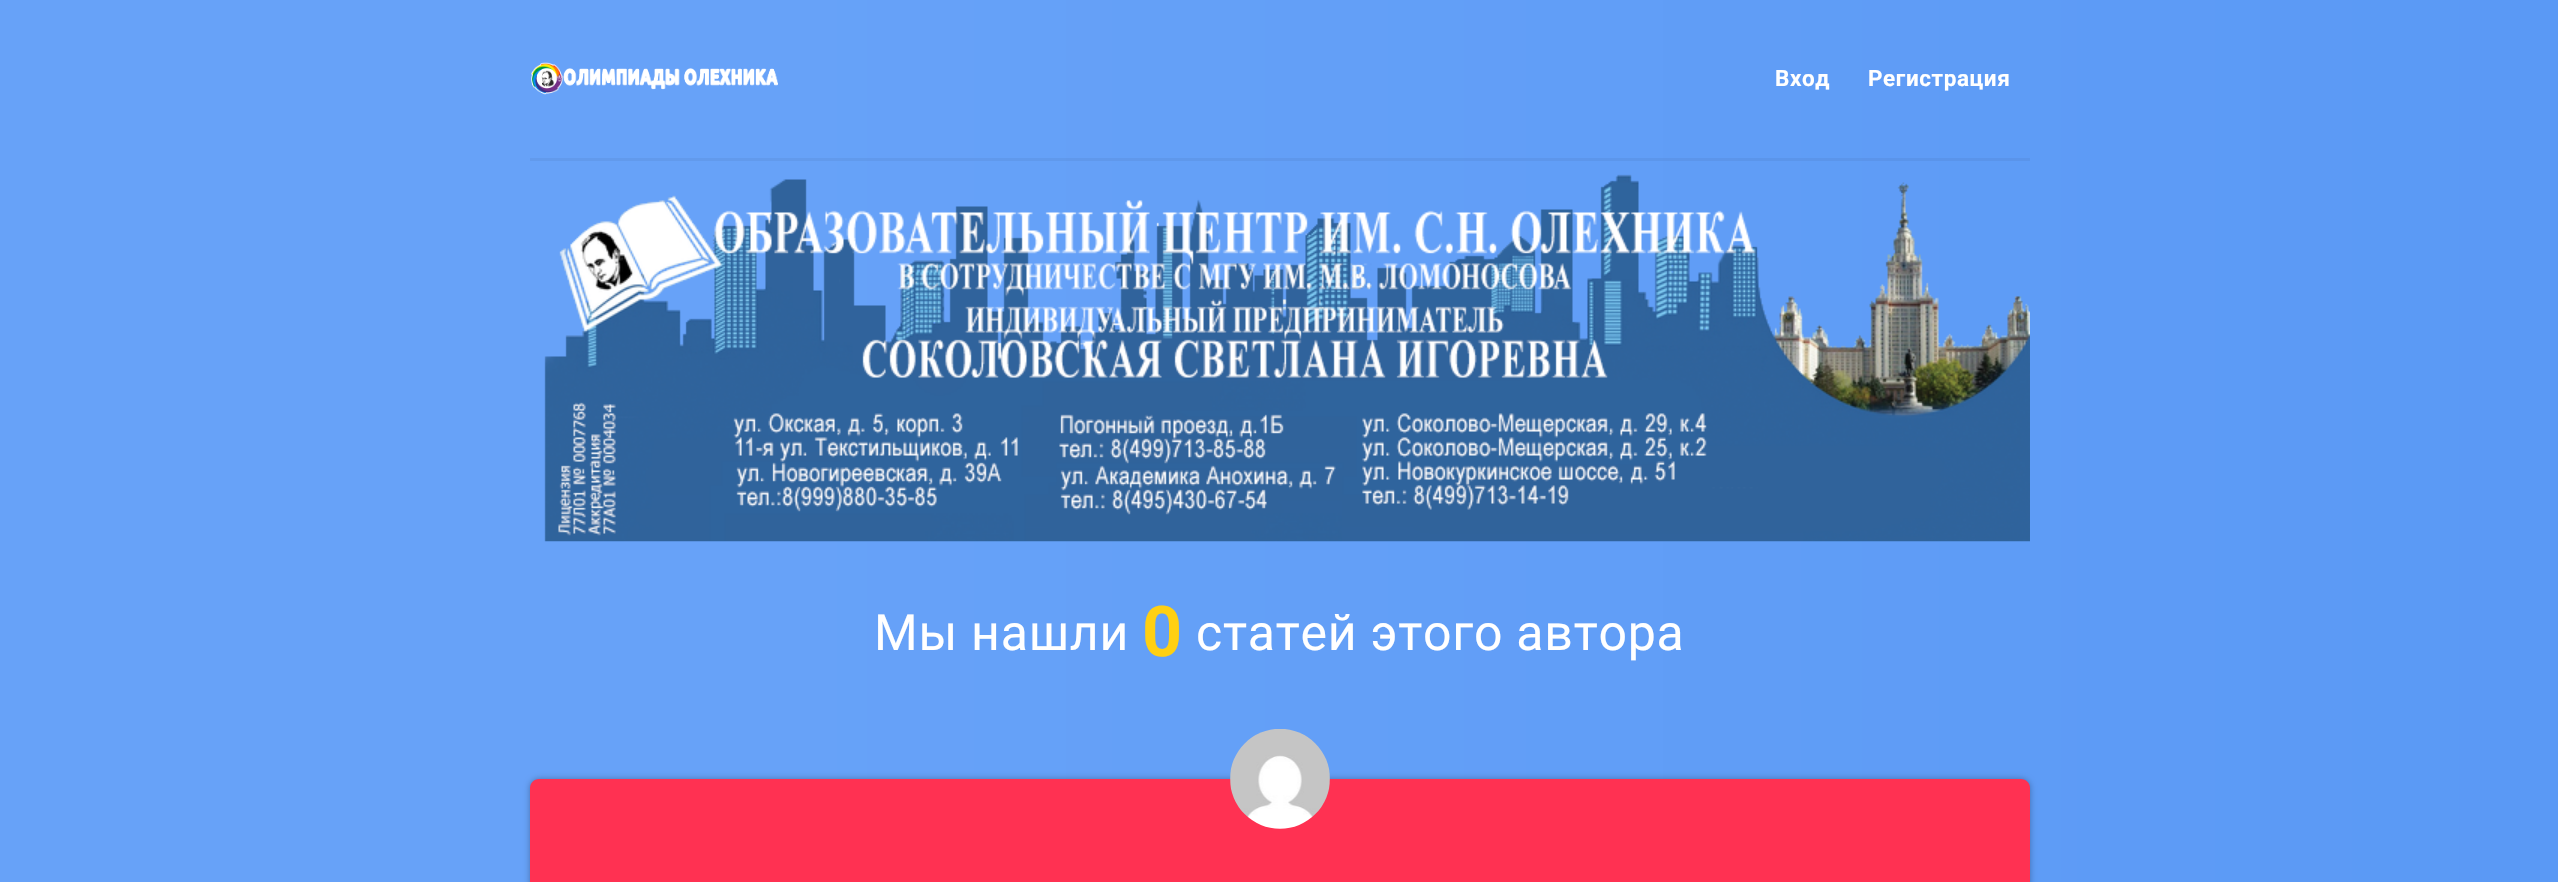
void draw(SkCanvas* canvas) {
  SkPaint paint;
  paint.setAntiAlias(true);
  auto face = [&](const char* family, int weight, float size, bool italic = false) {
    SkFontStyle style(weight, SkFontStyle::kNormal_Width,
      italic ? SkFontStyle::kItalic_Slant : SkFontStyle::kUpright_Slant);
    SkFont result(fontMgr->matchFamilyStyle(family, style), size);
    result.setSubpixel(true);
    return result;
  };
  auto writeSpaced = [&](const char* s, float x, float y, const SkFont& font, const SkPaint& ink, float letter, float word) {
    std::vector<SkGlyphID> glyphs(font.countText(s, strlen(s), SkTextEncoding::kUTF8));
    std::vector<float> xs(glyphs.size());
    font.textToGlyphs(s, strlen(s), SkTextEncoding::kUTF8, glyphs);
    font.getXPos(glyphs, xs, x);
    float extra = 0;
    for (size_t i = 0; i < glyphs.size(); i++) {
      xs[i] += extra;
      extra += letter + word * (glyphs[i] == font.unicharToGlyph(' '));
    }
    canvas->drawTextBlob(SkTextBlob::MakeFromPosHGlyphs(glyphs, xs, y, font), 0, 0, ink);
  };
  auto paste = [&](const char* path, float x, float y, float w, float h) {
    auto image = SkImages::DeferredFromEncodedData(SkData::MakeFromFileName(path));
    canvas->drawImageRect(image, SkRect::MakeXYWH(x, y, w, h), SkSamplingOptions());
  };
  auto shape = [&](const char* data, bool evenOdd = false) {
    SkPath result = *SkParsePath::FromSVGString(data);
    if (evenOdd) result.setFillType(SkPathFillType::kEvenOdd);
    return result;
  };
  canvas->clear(0xffffffff);
  {
    const SkColor colors[] = {0xff67a2f8, 0xff5a99f5};
    const float stops[] = {0.3f, 1};
    const SkPoint ends[] = {{0, 441}, {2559, 441}};
    paint.setShader(SkGradientShader::MakeLinear(ends, colors, stops, 2, SkTileMode::kClamp));
    paint.setAlpha(255);
  }
  canvas->drawRect(SkRect::MakeXYWH(0, 0, 2558, 882), paint);
  {
    const SkColor colors[] = {0xff629aec, 0xff5691e9};
    const float stops[] = {0.3f, 1};
    const SkPoint ends[] = {{0, 441}, {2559, 441}};
    paint.setShader(SkGradientShader::MakeLinear(ends, colors, stops, 2, SkTileMode::kClamp));
    paint.setAlpha(255);
  }
  canvas->drawRect(SkRect::MakeXYWH(530, 158, 1500, 3), paint);
  paste("img/1.png", 531, 62, 247, 33);
  paste("img/2.png", 544, 174, 1486, 368);
  paint.setShader(nullptr);
  paint.setColor(0x4d000000);
  paint.setMaskFilter(SkMaskFilter::MakeBlur(kNormal_SkBlurStyle, 3));
  canvas->drawRoundRect(SkRect::MakeXYWH(530, 779, 1500, 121), 9, 9, paint);
  paint.setMaskFilter(nullptr);
  paint.setColor(0xffff3152);
  canvas->drawPath(shape("M539 779H2021C2026 779 2030 783 2030 788V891H530V788C530 783 534 779 539 779Z"), paint);
  paste("img/3.png", 1230, 729, 100, 100);
  auto f0 = face("Roboto", 700, 22.5f);
  paint.setColor(0xffffffff);
  writeSpaced("Вход", 1775, 86, f0, paint, 0.6f, 0);
  writeSpaced("Регистрация", 1868, 86, f0, paint, 0.6f, 0);
  auto f1 = face("Roboto", 400, 50);
  writeSpaced("Мы нашли", 874, 650, f1, paint, 0.75f, 0);
  auto f2 = face("Roboto", 700, 70);
  paint.setColor(0xffffd012);
  writeSpaced("0", 1142, 656, f2, paint, 0.75f, 0);
  paint.setColor(0xffffffff);
  writeSpaced("статей этого автора", 1196, 650, f1, paint, 0.75f, 0);
}
